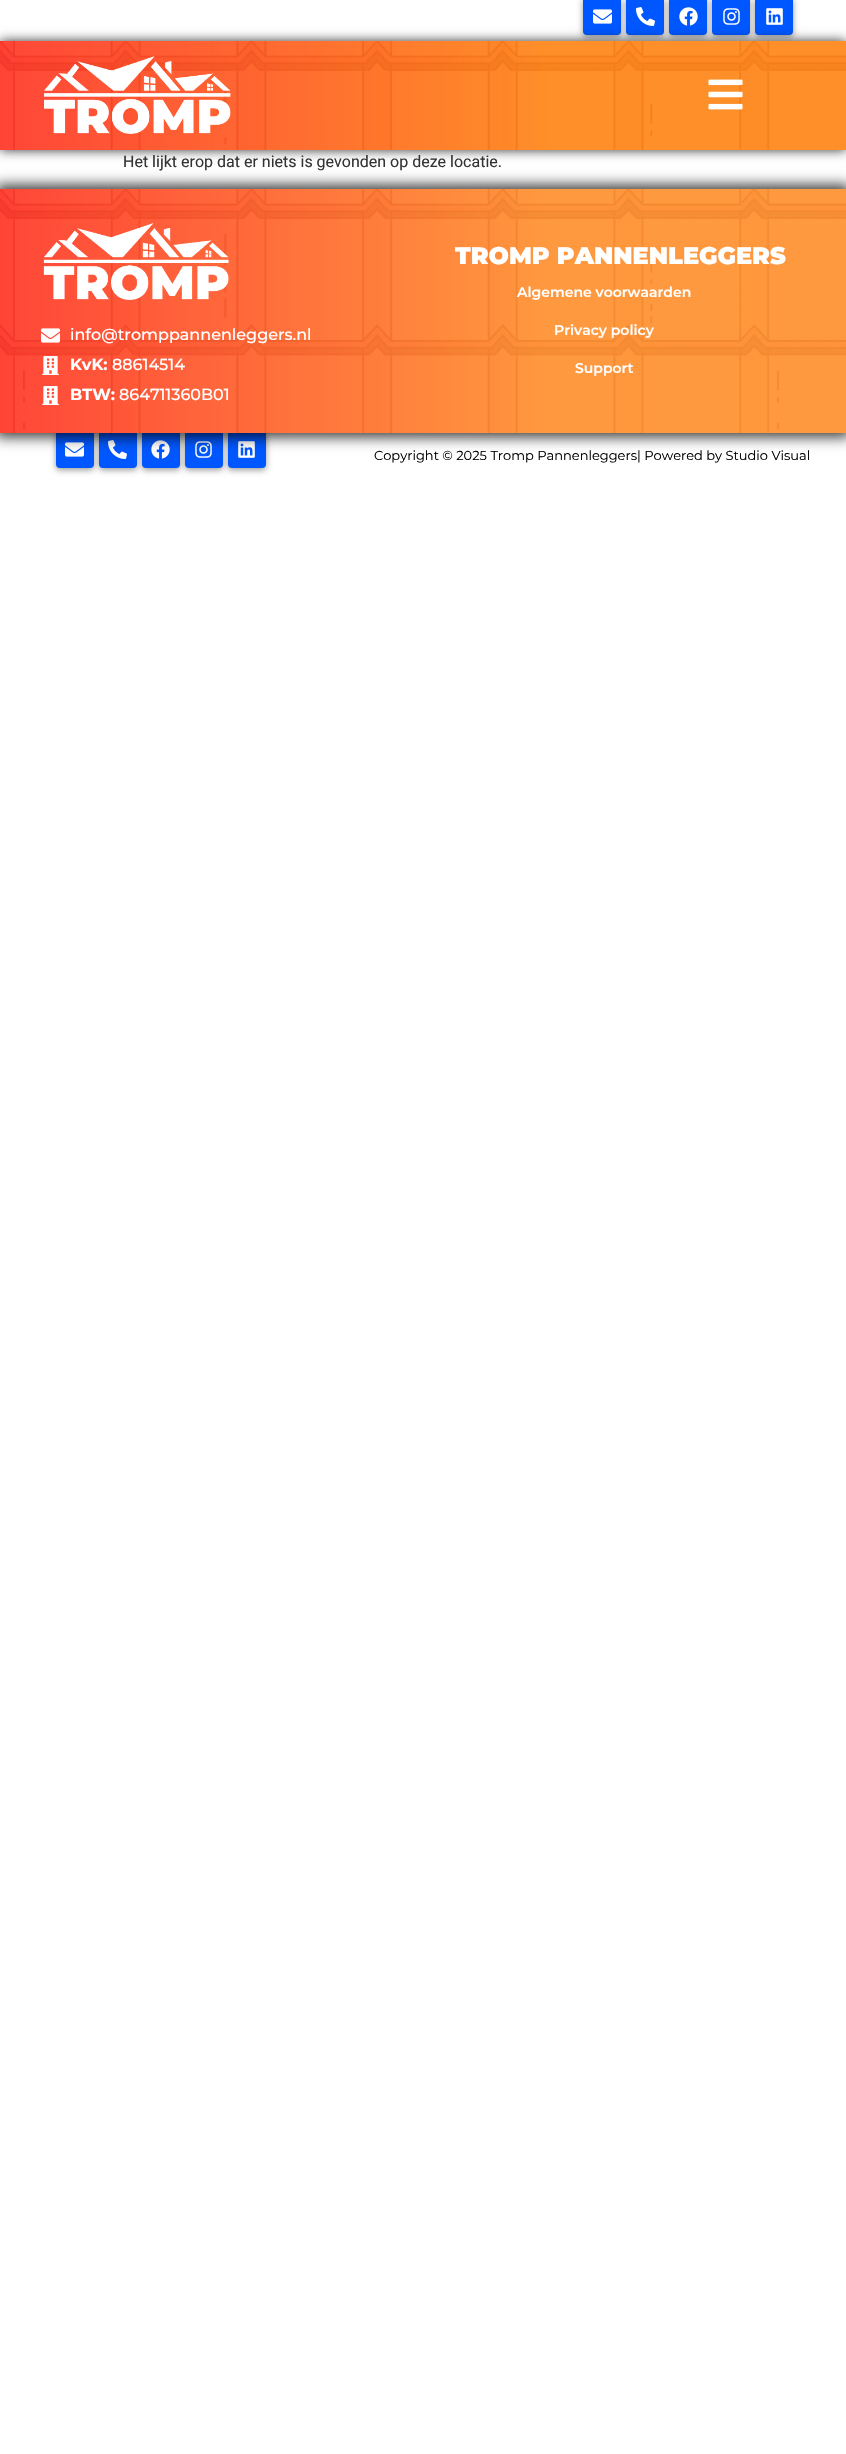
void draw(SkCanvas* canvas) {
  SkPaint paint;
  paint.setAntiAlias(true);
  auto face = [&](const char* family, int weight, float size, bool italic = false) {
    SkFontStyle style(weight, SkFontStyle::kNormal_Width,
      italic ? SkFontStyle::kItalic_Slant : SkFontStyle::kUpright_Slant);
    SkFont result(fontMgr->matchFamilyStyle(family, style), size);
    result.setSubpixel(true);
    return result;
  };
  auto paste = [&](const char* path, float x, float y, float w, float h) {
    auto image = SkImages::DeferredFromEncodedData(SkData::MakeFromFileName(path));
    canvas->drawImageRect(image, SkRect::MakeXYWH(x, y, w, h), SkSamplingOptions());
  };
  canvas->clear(0xffffffff);
  paint.setColor(0x66000000);
  paint.setMaskFilter(SkMaskFilter::MakeBlur(kNormal_SkBlurStyle, 3));
  canvas->drawRoundRect(SkRect::MakeXYWH(583, -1, 38, 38), 4, 4, paint);
  paint.setMaskFilter(nullptr);
  paint.setColor(0xff0057ff);
  canvas->drawRoundRect(SkRect::MakeXYWH(583, -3, 38, 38), 4, 4, paint);
  paste("img/1.png", 593, 9, 19, 15);
  paint.setColor(0x66000000);
  paint.setMaskFilter(SkMaskFilter::MakeBlur(kNormal_SkBlurStyle, 3));
  canvas->drawRoundRect(SkRect::MakeXYWH(626, -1, 38, 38), 4, 4, paint);
  paint.setMaskFilter(nullptr);
  paint.setColor(0xff0057ff);
  canvas->drawRoundRect(SkRect::MakeXYWH(626, -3, 38, 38), 4, 4, paint);
  paste("img/2.png", 636, 7, 19, 19);
  paint.setColor(0x66000000);
  paint.setMaskFilter(SkMaskFilter::MakeBlur(kNormal_SkBlurStyle, 3));
  canvas->drawRoundRect(SkRect::MakeXYWH(669, -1, 38, 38), 4, 4, paint);
  paint.setMaskFilter(nullptr);
  paint.setColor(0xff0057ff);
  canvas->drawRoundRect(SkRect::MakeXYWH(669, -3, 38, 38), 4, 4, paint);
  paste("img/3.png", 679, 7, 19, 19);
  paint.setColor(0x66000000);
  paint.setMaskFilter(SkMaskFilter::MakeBlur(kNormal_SkBlurStyle, 3));
  canvas->drawRoundRect(SkRect::MakeXYWH(712, -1, 38, 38), 4, 4, paint);
  paint.setMaskFilter(nullptr);
  paint.setColor(0xff0057ff);
  canvas->drawRoundRect(SkRect::MakeXYWH(712, -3, 38, 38), 4, 4, paint);
  paste("img/4.png", 723, 8, 17, 17);
  paint.setColor(0x66000000);
  paint.setMaskFilter(SkMaskFilter::MakeBlur(kNormal_SkBlurStyle, 3));
  canvas->drawRoundRect(SkRect::MakeXYWH(755, -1, 38, 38), 4, 4, paint);
  paint.setMaskFilter(nullptr);
  paint.setColor(0xff0057ff);
  canvas->drawRoundRect(SkRect::MakeXYWH(755, -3, 38, 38), 4, 4, paint);
  paste("img/5.png", 766, 8, 17, 17);
  paint.setColor(0xcc000000);
  paint.setMaskFilter(SkMaskFilter::MakeBlur(kNormal_SkBlurStyle, 5.5f));
  canvas->drawRect(SkRect::MakeXYWH(0, 41, 846, 109), paint);
  paint.setMaskFilter(nullptr);
  {
    const SkColor colors[] = {0xffff3c2b, 0xffff8d1a};
    const float stops[] = {0, 0.65f};
    const SkPoint ends[] = {{0, 96}, {846, 95}};
    paint.setShader(SkGradientShader::MakeLinear(ends, colors, stops, 2, SkTileMode::kClamp));
    paint.setAlpha(255);
  }
  canvas->drawRect(SkRect::MakeXYWH(0, 41, 846, 109), paint);
  paste("img/6.png", 0, 41, 846, 109);
  paste("img/7.png", 44, 56, 187, 78);
  paste("img/8.png", 708, 79, 35, 31);
  paint.setShader(nullptr);
  paint.setColor(0x66000000);
  paint.setMaskFilter(SkMaskFilter::MakeBlur(kNormal_SkBlurStyle, 3));
  canvas->drawRoundRect(SkRect::MakeXYWH(56, 432, 38, 38), 4, 4, paint);
  paint.setMaskFilter(nullptr);
  paint.setColor(0xff0057ff);
  canvas->drawRoundRect(SkRect::MakeXYWH(56, 430, 38, 38), 4, 4, paint);
  paste("img/1.png", 65, 442, 19, 15);
  paint.setColor(0x66000000);
  paint.setMaskFilter(SkMaskFilter::MakeBlur(kNormal_SkBlurStyle, 3));
  canvas->drawRoundRect(SkRect::MakeXYWH(99, 432, 38, 38), 4, 4, paint);
  paint.setMaskFilter(nullptr);
  paint.setColor(0xff0057ff);
  canvas->drawRoundRect(SkRect::MakeXYWH(99, 430, 38, 38), 4, 4, paint);
  paste("img/2.png", 108, 440, 19, 19);
  paint.setColor(0x66000000);
  paint.setMaskFilter(SkMaskFilter::MakeBlur(kNormal_SkBlurStyle, 3));
  canvas->drawRoundRect(SkRect::MakeXYWH(142, 432, 38, 38), 4, 4, paint);
  paint.setMaskFilter(nullptr);
  paint.setColor(0xff0057ff);
  canvas->drawRoundRect(SkRect::MakeXYWH(142, 430, 38, 38), 4, 4, paint);
  paste("img/3.png", 151, 440, 19, 19);
  paint.setColor(0x66000000);
  paint.setMaskFilter(SkMaskFilter::MakeBlur(kNormal_SkBlurStyle, 3));
  canvas->drawRoundRect(SkRect::MakeXYWH(185, 432, 38, 38), 4, 4, paint);
  paint.setMaskFilter(nullptr);
  paint.setColor(0xff0057ff);
  canvas->drawRoundRect(SkRect::MakeXYWH(185, 430, 38, 38), 4, 4, paint);
  paste("img/4.png", 195, 441, 17, 17);
  paint.setColor(0x66000000);
  paint.setMaskFilter(SkMaskFilter::MakeBlur(kNormal_SkBlurStyle, 3));
  canvas->drawRoundRect(SkRect::MakeXYWH(228, 432, 38, 38), 4, 4, paint);
  paint.setMaskFilter(nullptr);
  paint.setColor(0xff0057ff);
  canvas->drawRoundRect(SkRect::MakeXYWH(228, 430, 38, 38), 4, 4, paint);
  paste("img/5.png", 238, 441, 17, 17);
  paint.setColor(0xc7000000);
  paint.setMaskFilter(SkMaskFilter::MakeBlur(kNormal_SkBlurStyle, 6.5f));
  canvas->drawRect(SkRect::MakeXYWH(-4, 185, 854, 252), paint);
  paint.setMaskFilter(nullptr);
  {
    const SkColor colors[] = {0xffff3c2b, 0xffff9933};
    const float stops[] = {0, 0.65f};
    const SkPoint ends[] = {{0, 311}, {846, 311}};
    paint.setShader(SkGradientShader::MakeLinear(ends, colors, stops, 2, SkTileMode::kClamp));
    paint.setAlpha(255);
  }
  canvas->drawRect(SkRect::MakeXYWH(0, 189, 846, 244), paint);
  paste("img/9.png", 0, 189, 846, 244);
  paste("img/10.png", 43, 223, 186, 77);
  paste("img/11.png", 41, 328, 19, 15);
  paste("img/12.png", 42, 356, 17, 19);
  paste("img/12.png", 42, 386, 17, 19);
  auto f0 = face("Roboto", 400, 16);
  paint.setShader(nullptr);
  paint.setColor(0xff333333);
  canvas->drawString("Het lijkt erop dat er niets is gevonden op deze locatie.", 123, 167, f0, paint);
  auto f1 = face("Montserrat", 500, 16);
  paint.setColor(0xffffffff);
  canvas->drawString("info@tromppannenleggers.nl", 70, 340, f1, paint);
  auto f2 = face("Montserrat", 700, 16);
  canvas->drawString("KvK:", 70, 370, f2, paint);
  canvas->drawString("88614514", 112, 370, f1, paint);
  canvas->drawString("BTW:", 70, 400, f2, paint);
  canvas->drawString("864711360B01", 119, 400, f1, paint);
  auto f3 = face("Montserrat", 900, 24);
  canvas->drawString("TROMP PANNENLEGGERS", 455, 264, f3, paint);
  auto f4 = face("Montserrat", 600, 14);
  {
    const struct { const char* s; float x, y; } items[] = {
      {"Algemene voorwaarden", 517, 297},
      {"Privacy policy", 554, 335},
      {"Support", 575, 373},
    };
    for (auto [s, x, y] : items) {
      canvas->drawString(s, x, y, f4, paint);
    }
  }
  auto f5 = face("Montserrat", 400, 13);
  paint.setColor(0xff000000);
  canvas->drawString("Copyright © 2025 Tromp Pannenleggers| Powered by Studio Visual", 374, 460, f5, paint);
}
